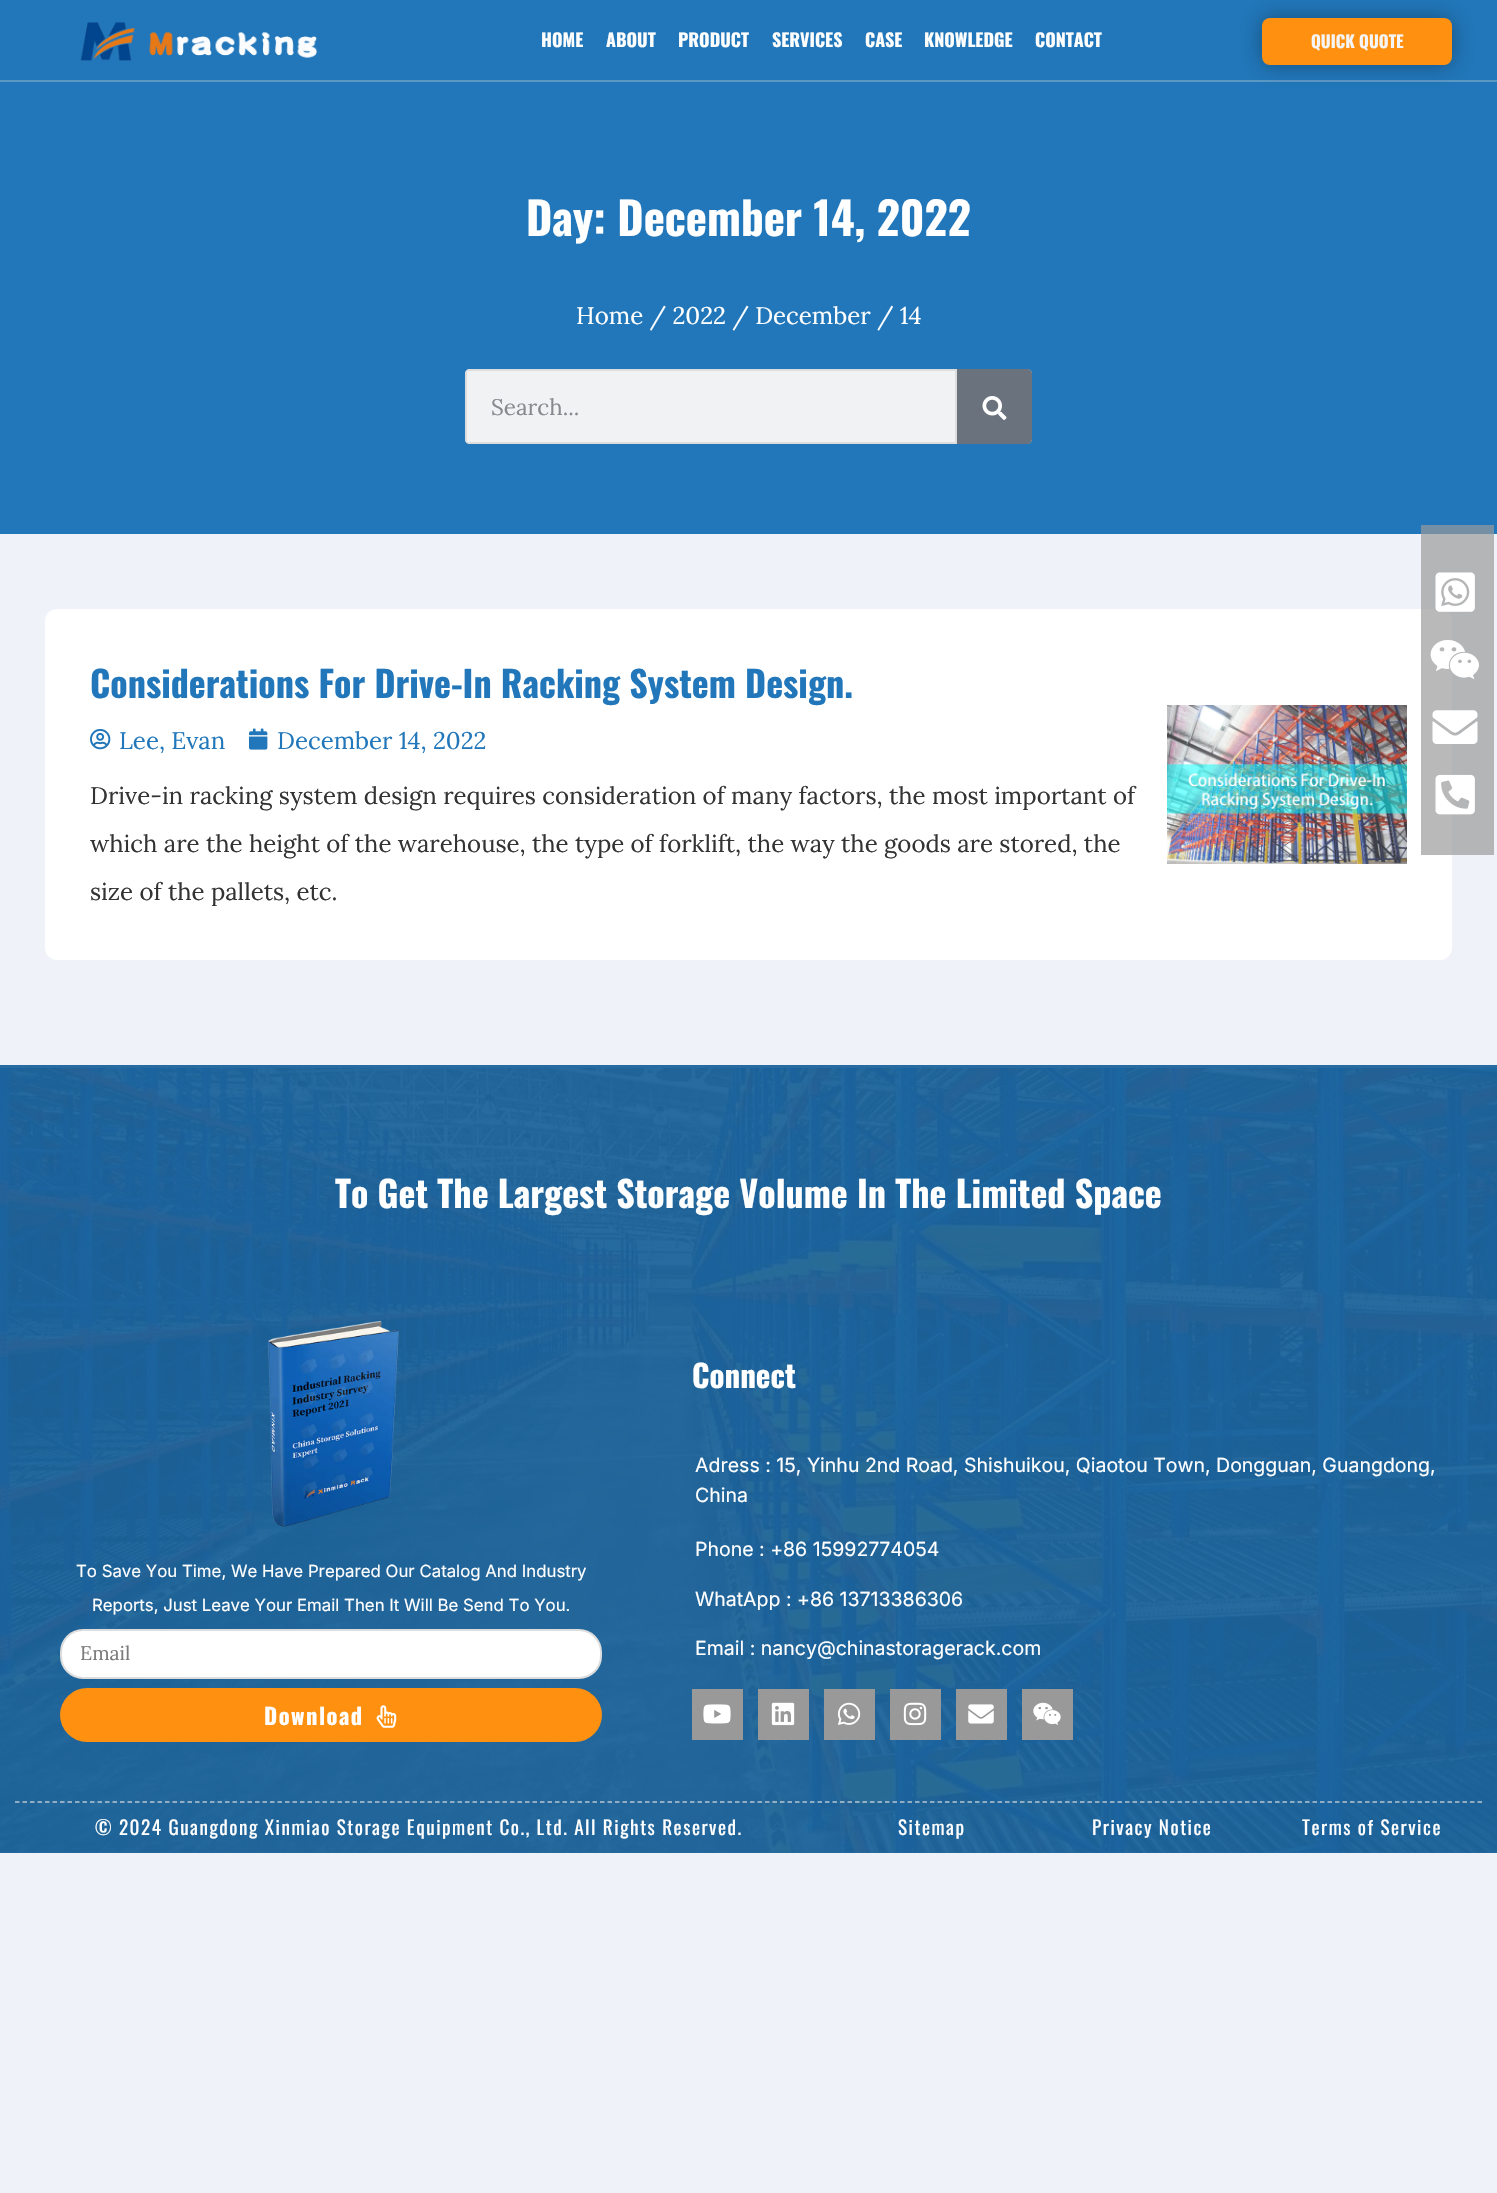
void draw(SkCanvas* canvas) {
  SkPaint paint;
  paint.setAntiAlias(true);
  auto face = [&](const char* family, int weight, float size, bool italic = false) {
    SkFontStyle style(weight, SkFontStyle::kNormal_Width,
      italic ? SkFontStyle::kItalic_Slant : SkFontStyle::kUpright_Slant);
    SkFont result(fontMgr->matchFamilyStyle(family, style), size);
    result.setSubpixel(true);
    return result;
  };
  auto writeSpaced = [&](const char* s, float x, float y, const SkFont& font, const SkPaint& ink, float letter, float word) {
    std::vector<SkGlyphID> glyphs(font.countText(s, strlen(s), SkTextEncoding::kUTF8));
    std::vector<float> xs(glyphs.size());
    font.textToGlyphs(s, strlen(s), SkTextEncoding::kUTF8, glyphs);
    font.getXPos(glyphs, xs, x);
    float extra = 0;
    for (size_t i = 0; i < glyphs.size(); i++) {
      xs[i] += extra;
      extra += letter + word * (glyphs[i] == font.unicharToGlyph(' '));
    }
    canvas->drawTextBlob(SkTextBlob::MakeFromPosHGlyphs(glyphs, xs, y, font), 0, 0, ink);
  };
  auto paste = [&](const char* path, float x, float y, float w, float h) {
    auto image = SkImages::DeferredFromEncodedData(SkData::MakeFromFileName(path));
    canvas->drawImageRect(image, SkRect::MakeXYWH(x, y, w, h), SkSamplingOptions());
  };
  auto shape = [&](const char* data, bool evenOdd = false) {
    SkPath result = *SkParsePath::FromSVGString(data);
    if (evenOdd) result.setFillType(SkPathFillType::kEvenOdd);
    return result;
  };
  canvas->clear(0xffeff2f8);
  paint.setColor(0xff276ba1);
  canvas->drawRect(SkRect::MakeXYWH(0, 1065, 1497, 788), paint);
  paint.setColor(0xff2177ba);
  canvas->drawRect(SkRect::MakeXYWH(0, 0, 1497, 80), paint);
  paste("img/1.png", 80, 22, 238, 39);
  canvas->drawRect(SkRect::MakeXYWH(0, 82, 1497, 452), paint);
  paint.setColor(0xff5d98c5);
  canvas->drawRect(SkRect::MakeXYWH(0, 80, 1497, 2), paint);
  paint.setColor(0x57000000);
  paint.setMaskFilter(SkMaskFilter::MakeBlur(kNormal_SkBlurStyle, 11));
  canvas->drawRoundRect(SkRect::MakeXYWH(1262, 18, 190, 47), 8, 8, paint);
  paint.setMaskFilter(nullptr);
  paint.setColor(0xffff9010);
  canvas->drawRoundRect(SkRect::MakeXYWH(1262, 18, 190, 47), 8, 8, paint);
  paint.setColor(0xfff1f2f3);
  canvas->drawRoundRect(SkRect::MakeXYWH(465, 369, 567, 75), 5, 5, paint);
  paint.setColor(0xffdddddd);
  canvas->drawPath(shape("M470 369C467 369 465 371 465 374V439C465 442 467 444 470 444H957V369ZM467 371V442H955V371Z", true), paint);
  paint.setColor(0xff69727d);
  canvas->drawPath(shape("M957 369H1027C1030 369 1032 371 1032 374V439C1032 442 1030 444 1027 444H957Z"), paint);
  paste("img/2.png", 982, 396, 25, 24);
  paint.setColor(0xffffffff);
  canvas->drawRoundRect(SkRect::MakeXYWH(45, 609, 1407, 351), 12, 12, paint);
  paste("img/3.png", 90, 729, 21, 21);
  paste("img/4.png", 249, 728, 19, 22);
  paste("img/5.png", 1167, 705, 240, 159);
  paint.setColor(0xb0999999);
  canvas->drawRect(SkRect::MakeXYWH(1421, 525, 73, 330), paint);
  paste("img/6.png", 1435, 572, 40, 40);
  paste("img/7.png", 1430, 640, 49, 40);
  paste("img/8.png", 1432, 710, 46, 34);
  paste("img/9.png", 1435, 774, 40, 41);
  paste("img/10.png", 0, 1068, 1497, 785);
  paste("img/11.png", 268, 1321, 131, 206);
  paint.setColor(0xffffffff);
  canvas->drawRoundRect(SkRect::MakeXYWH(61, 1630, 540, 48), 22, 22, paint);
  paint.setStroke(true);
  paint.setStrokeWidth(2);
  paint.setColor(0xffdddddd);
  canvas->drawRoundRect(SkRect::MakeXYWH(61, 1630, 540, 48), 22, 22, paint);
  paint.setStroke(false);
  paint.setColor(0xffff9010);
  canvas->drawRoundRect(SkRect::MakeXYWH(60, 1688, 542, 54), 27, 27, paint);
  paste("img/12.png", 376, 1705, 21, 23);
  paint.setColor(0xff999999);
  canvas->drawRect(SkRect::MakeXYWH(692, 1689, 51, 51), paint);
  paste("img/13.png", 703, 1704, 28, 20);
  canvas->drawRect(SkRect::MakeXYWH(758, 1689, 51, 51), paint);
  paste("img/14.png", 771, 1702, 24, 24);
  canvas->drawRect(SkRect::MakeXYWH(824, 1689, 51, 51), paint);
  paste("img/15.png", 838, 1702, 23, 23);
  canvas->drawRect(SkRect::MakeXYWH(890, 1689, 51, 51), paint);
  paste("img/16.png", 903, 1702, 24, 24);
  canvas->drawRect(SkRect::MakeXYWH(956, 1689, 51, 51), paint);
  paste("img/17.png", 968, 1704, 26, 20);
  canvas->drawRect(SkRect::MakeXYWH(1022, 1689, 51, 51), paint);
  paste("img/18.png", 1033, 1702, 28, 23);
  paint.setStroke(true);
  paint.setStrokeWidth(1.5f);
  paint.setColor(0xccdddddd);
  paint.setPathEffect(SkDashPathEffect::Make({{4.5f, 3}}, 0));
  canvas->drawPath(shape("M15 1802H1482"), paint);
  paint.setPathEffect(nullptr);
  auto f0 = face("Oswald", 700, 18);
  paint.setStroke(false);
  paint.setColor(0xffffffff);
  {
    const struct { const char* s; float x, y; } items[] = {
      {"HOME", 541, 47},
      {"ABOUT", 606, 47},
      {"PRODUCT", 678, 47},
      {"SERVICES", 772, 47},
      {"CASE", 865, 47},
      {"KNOWLEDGE", 924, 47},
      {"CONTACT", 1035, 47},
    };
    for (auto [s, x, y] : items) {
      canvas->drawString(s, x, y, f0, paint);
    }
  }
  auto f1 = face("Oswald", 700, 16.8f);
  paint.setColor(0xfff5f5f5);
  canvas->drawString("QUICK QUOTE", 1311, 48, f1, paint);
  auto f2 = face("Oswald", 700, 45);
  paint.setColor(0xffffffff);
  canvas->drawString("Day: December 14, 2022", 526, 236, f2, paint);
  auto f3 = face("Lora", 400, 24);
  canvas->drawString("Home / 2022 / December / 14", 576, 324, f3, paint);
  auto f4 = face("Lora", 400, 22.5f);
  paint.setColor(0xff868a8e);
  canvas->drawString("Search...", 491, 415, f4, paint);
  auto f5 = face("Oswald", 700, 36);
  paint.setColor(0xff2177ba);
  canvas->drawString("Considerations For Drive-In Racking System Design.", 90, 698, f5, paint);
  canvas->drawString("Lee, Evan", 119, 749, f3, paint);
  canvas->drawString("December 14, 2022", 277, 749, f3, paint);
  paint.setColor(0xff333333);
  {
    const struct { const char* s; float x, y; } items[] = {
      {"Drive-in racking system design requires consideration of many factors, the most important of", 90, 804},
      {"which are the height of the warehouse, the type of forklift, the way the goods are stored, the", 90, 852},
      {"size of the pallets, etc.", 90, 900},
    };
    for (auto [s, x, y] : items) {
      canvas->drawString(s, x, y, f3, paint);
    }
  }
  paint.setColor(0xffffffff);
  canvas->drawString("To Get The Largest Storage Volume In The Limited Space", 335, 1208, f5, paint);
  auto f6 = face("Inter", 400, 16.8f);
  canvas->drawString("To Save You Time, We Have Prepared Our Catalog And Industry", 76, 1577, f6, paint);
  canvas->drawString("Reports, Just Leave Your Email Then It Will Be Send To You.", 92, 1611, f6, paint);
  auto f7 = face("Lora", 400, 19.5f);
  paint.setColor(0xff797a7c);
  canvas->drawString("Email", 80, 1660, f7, paint);
  auto f8 = face("Oswald", 700, 22.5f);
  paint.setColor(0xffffffff);
  writeSpaced("Download", 264, 1725, f8, paint, 1.5f, 0);
  auto f9 = face("Oswald", 700, 31);
  canvas->drawString("Connect", 692, 1388, f9, paint);
  auto f10 = face("Inter", 400, 19.5f);
  {
    const struct { const char* s; float x, y; } items[] = {
      {"Adress : 15, Yinhu 2nd Road, Shishuikou, Qiaotou Town, Dongguan, Guangdong,", 695, 1472},
      {"China", 695, 1502},
      {"Phone : +86 15992774054", 695, 1556},
      {"WhatApp : +86 13713386306", 695, 1606},
      {"Email : nancy@chinastoragerack.com", 695, 1655},
    };
    for (auto [s, x, y] : items) {
      canvas->drawString(s, x, y, f10, paint);
    }
  }
  auto f11 = face("Oswald", 400, 19.2f);
  {
    const struct { const char* s; float x, y; } items[] = {
      {"© 2024 Guangdong Xinmiao Storage Equipment Co., Ltd. All Rights Reserved.", 95, 1835},
      {"Sitemap", 898, 1835},
      {"Privacy Notice", 1092, 1835},
      {"Terms of Service", 1302, 1835},
    };
    for (auto [s, x, y] : items) {
      writeSpaced(s, x, y, f11, paint, 1.5f, 0);
    }
  }
}
